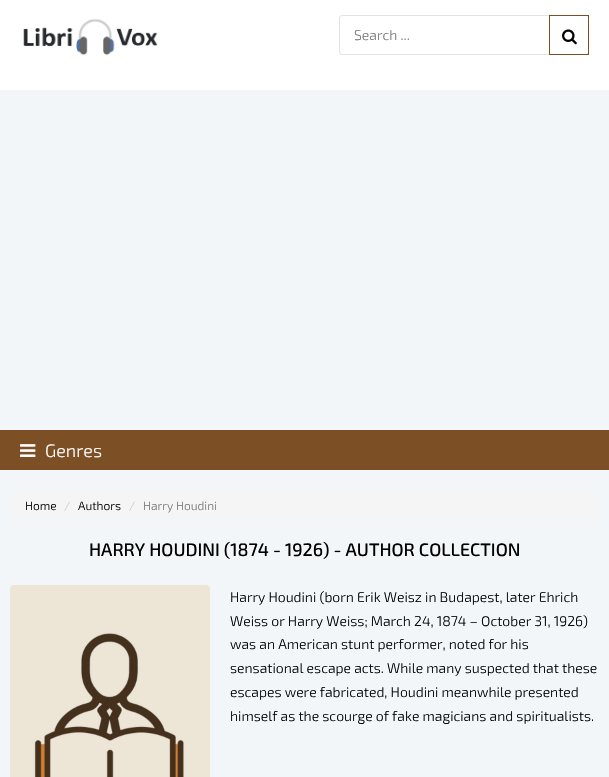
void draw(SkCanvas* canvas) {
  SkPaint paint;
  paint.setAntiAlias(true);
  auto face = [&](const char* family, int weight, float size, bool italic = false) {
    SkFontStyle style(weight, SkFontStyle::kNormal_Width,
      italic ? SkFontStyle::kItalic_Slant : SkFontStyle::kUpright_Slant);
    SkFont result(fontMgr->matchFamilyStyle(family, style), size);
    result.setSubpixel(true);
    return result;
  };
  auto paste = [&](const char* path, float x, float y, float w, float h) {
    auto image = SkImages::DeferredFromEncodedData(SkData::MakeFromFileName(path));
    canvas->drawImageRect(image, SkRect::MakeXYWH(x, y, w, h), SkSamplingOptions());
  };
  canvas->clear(0xfff2f6f8);
  paint.setColor(0xffffffff);
  canvas->drawRect(SkRect::MakeXYWH(0, 0, 609, 90), paint);
  paste("img/1.png", 23, 19, 135, 37);
  paint.setStroke(true);
  paint.setStrokeWidth(1);
  paint.setColor(0xffe3e3e3);
  canvas->drawRoundRect(SkRect::MakeXYWH(339.5f, 15.5f, 249, 39), 2.5f, 2.5f, paint);
  paint.setColor(0xff7c4f24);
  canvas->drawRect(SkRect::MakeXYWH(549.5f, 15.5f, 39, 39), paint);
  paste("img/2.png", 562, 29, 15, 16);
  paint.setStroke(false);
  canvas->drawRect(SkRect::MakeXYWH(0, 430, 609, 40), paint);
  paste("img/3.png", 20, 444, 16, 13);
  paint.setColor(0xfff5f5f5);
  canvas->drawRoundRect(SkRect::MakeXYWH(10, 490, 589, 30), 4, 4, paint);
  paste("img/4.png", 10, 585, 200, 192);
  auto f0 = face("Exo 2", 300, 14);
  paint.setColor(0xff777777);
  canvas->drawString("Search ...", 354, 40, f0, paint);
  auto f1 = face("Exo 2", 300, 18);
  paint.setColor(0xffffffff);
  canvas->drawString("Genres", 45, 457, f1, paint);
  auto f2 = face("Exo 2", 300, 12);
  paint.setColor(0xff000000);
  canvas->drawString("Home", 25, 510, f2, paint);
  paint.setColor(0xffcccccc);
  canvas->drawString("/", 64, 510, f2, paint);
  paint.setColor(0xff000000);
  canvas->drawString("Authors", 78, 510, f2, paint);
  paint.setColor(0xffcccccc);
  canvas->drawString("/", 129, 510, f2, paint);
  paint.setColor(0xff777777);
  canvas->drawString("Harry Houdini", 143, 510, f2, paint);
  auto f3 = face("Exo 2", 500, 18);
  paint.setColor(0xff000000);
  canvas->drawString("HARRY HOUDINI (1874 - 1926) - AUTHOR COLLECTION", 89, 556, f3, paint);
  {
    const struct { const char* s; float x, y; } items[] = {
      {"Harry Houdini (born Erik Weisz in Budapest, later Ehrich", 230, 602},
      {"Weiss or Harry Weiss; March 24, 1874 – October 31, 1926)", 230, 626},
      {"was an American stunt performer, noted for his", 230, 649},
      {"sensational escape acts. While many suspected that these", 230, 673},
      {"escapes were fabricated, Houdini meanwhile presented", 230, 697},
      {"himself as the scourge of fake magicians and spiritualists.", 230, 721},
    };
    for (auto [s, x, y] : items) {
      canvas->drawString(s, x, y, f0, paint);
    }
  }
}
